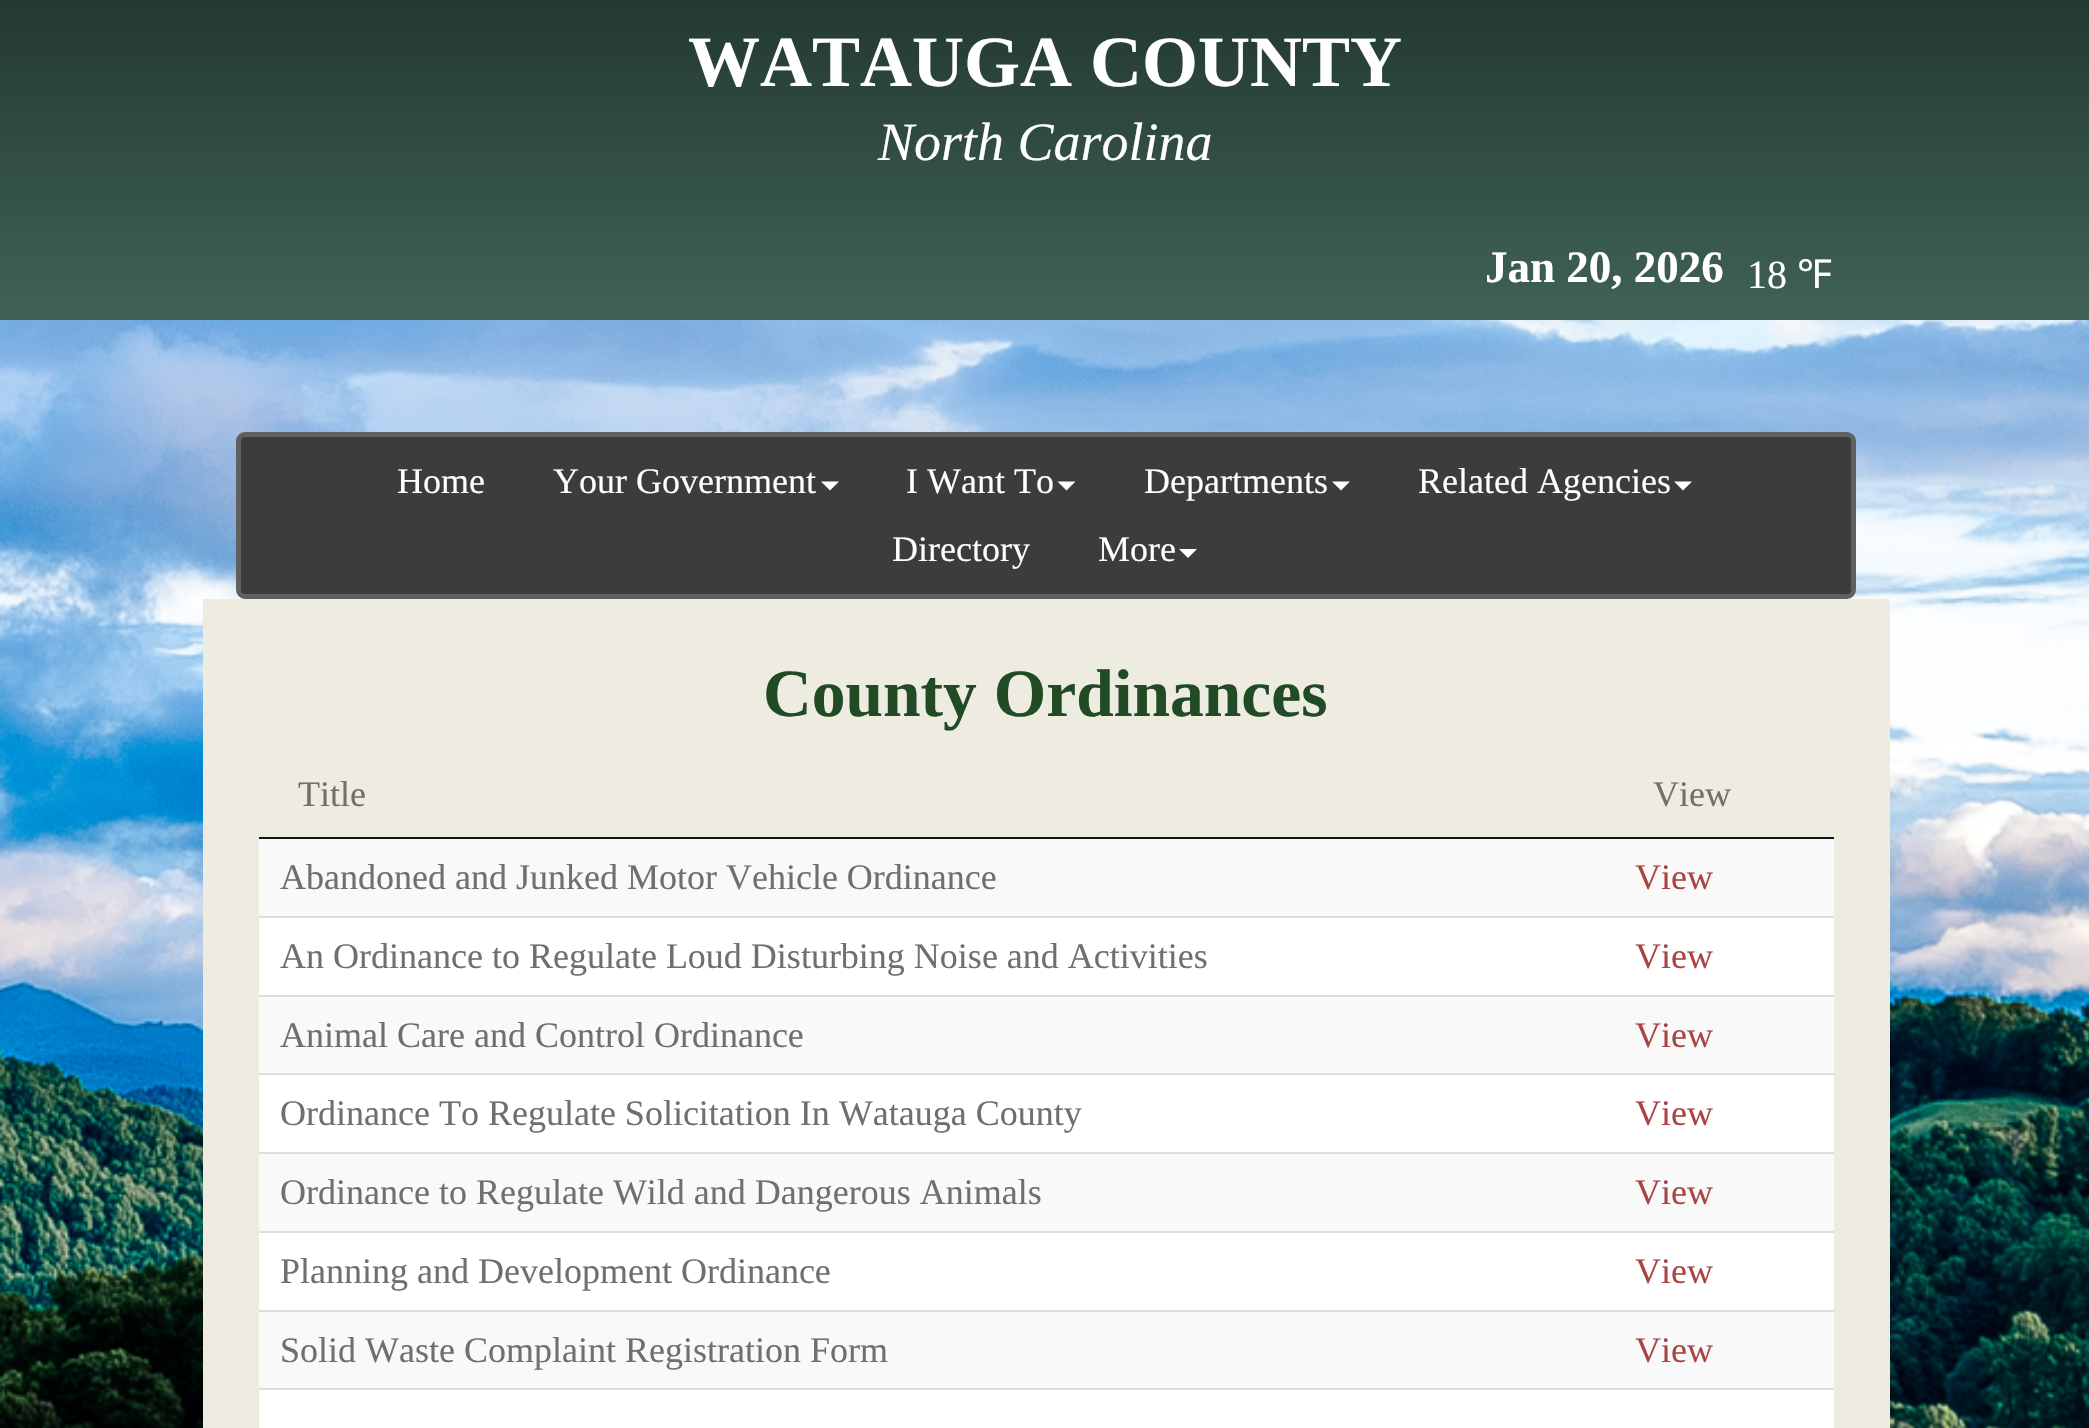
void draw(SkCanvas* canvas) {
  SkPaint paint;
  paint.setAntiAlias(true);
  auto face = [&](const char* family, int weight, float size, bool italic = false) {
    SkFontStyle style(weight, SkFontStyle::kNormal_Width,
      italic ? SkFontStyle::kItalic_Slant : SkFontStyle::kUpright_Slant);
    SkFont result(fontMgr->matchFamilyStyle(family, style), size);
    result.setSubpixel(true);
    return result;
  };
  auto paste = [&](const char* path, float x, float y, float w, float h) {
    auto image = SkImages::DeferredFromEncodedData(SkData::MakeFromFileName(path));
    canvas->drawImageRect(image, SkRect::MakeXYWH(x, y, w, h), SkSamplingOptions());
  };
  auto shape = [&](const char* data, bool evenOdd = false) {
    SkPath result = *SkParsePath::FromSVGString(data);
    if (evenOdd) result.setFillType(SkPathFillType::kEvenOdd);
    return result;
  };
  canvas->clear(0xffffffff);
  paste("img/1.png", 0, 320, 2089, 1108);
  {
    const SkColor colors[] = {0xff233932, 0xff406258};
    const float stops[] = {0, 1};
    const SkPoint ends[] = {{1045, 0}, {1045, 320}};
    paint.setShader(SkGradientShader::MakeLinear(ends, colors, stops, 2, SkTileMode::kClamp));
    paint.setAlpha(255);
  }
  canvas->drawRect(SkRect::MakeXYWH(0, 0, 2089, 320), paint);
  paint.setShader(nullptr);
  paint.setColor(0xff3c3c3c);
  canvas->drawRoundRect(SkRect::MakeXYWH(238.5f, 434.5f, 1615, 162), 6.5f, 6.5f, paint);
  paint.setStroke(true);
  paint.setStrokeWidth(5);
  paint.setColor(0xff606060);
  canvas->drawRoundRect(SkRect::MakeXYWH(238.5f, 434.5f, 1615, 162), 6.5f, 6.5f, paint);
  paint.setStroke(false);
  paint.setColor(0xffffffff);
  canvas->drawPath(shape("M821 481.5H839L830 490.5Z"), paint);
  canvas->drawPath(shape("M1057.5 481.5H1075.5L1066.5 490.5Z"), paint);
  canvas->drawPath(shape("M1332 481.5H1350L1341 490.5Z"), paint);
  canvas->drawPath(shape("M1674 481.5H1692L1683 490.5Z"), paint);
  canvas->drawPath(shape("M1179 549H1197L1188 558Z"), paint);
  {
    const struct { float x, y, w, h; SkColor color; } items[] = {
      {203, 599, 1687, 829, 0xffeeece1},
      {259, 837, 1575, 2, 0xff111111},
      {259, 839, 1575, 77, 0xfff9f9f9},
      {259, 918, 1575, 77, 0xffffffff},
      {259, 916, 1575, 2, 0xffdddddd},
      {259, 997, 1575, 76, 0xfff9f9f9},
      {259, 995, 1575, 2, 0xffdddddd},
      {259, 1075, 1575, 77, 0xffffffff},
      {259, 1073, 1575, 2, 0xffdddddd},
      {259, 1154, 1575, 77, 0xfff9f9f9},
      {259, 1152, 1575, 2, 0xffdddddd},
      {259, 1233, 1575, 77, 0xffffffff},
      {259, 1231, 1575, 2, 0xffdddddd},
      {259, 1312, 1575, 76, 0xfff9f9f9},
      {259, 1310, 1575, 2, 0xffdddddd},
      {259, 1390, 1575, 38, 0xffffffff},
      {259, 1388, 1575, 2, 0xffdddddd},
    };
    for (auto [x, y, w, h, color] : items) {
      paint.setColor(color);
      canvas->drawRect(SkRect::MakeXYWH(x, y, w, h), paint);
    }
  }
  auto f0 = face("Liberation Serif", 700, 72);
  paint.setColor(0xffffffff);
  canvas->drawString("WATAUGA COUNTY", 688, 86, f0, paint);
  auto f1 = face("Liberation Serif", 400, 54, true);
  canvas->drawString("North Carolina", 878, 160, f1, paint);
  auto f2 = face("Liberation Serif", 700, 45);
  canvas->drawString("Jan 20, 2026", 1485, 282, f2, paint);
  auto f3 = face("Liberation Serif", 400, 40);
  canvas->drawString("18", 1747, 288, f3, paint);
  auto f4 = face("Noto Sans", 400, 40);
  canvas->drawString("℉", 1797, 288, f4, paint);
  auto f5 = face("Liberation Serif", 400, 36);
  {
    const struct { const char* s; float x, y; } items[] = {
      {"Home", 397, 493},
      {"Your Government", 553, 493},
      {"I Want To", 906, 493},
      {"Departments", 1144, 493},
      {"Related Agencies", 1418, 493},
      {"Directory", 892, 561},
      {"More", 1098, 561},
    };
    for (auto [s, x, y] : items) {
      canvas->drawString(s, x, y, f5, paint);
    }
  }
  auto f6 = face("Liberation Serif", 700, 67.5f);
  paint.setColor(0xff214b24);
  canvas->drawString("County Ordinances", 763, 716, f6, paint);
  paint.setColor(0xff6f6f6e);
  {
    const struct { const char* s; float x, y; } items[] = {
      {"Title", 298, 806},
      {"View", 1653, 806},
      {"Abandoned and Junked Motor Vehicle Ordinance", 280, 889},
    };
    for (auto [s, x, y] : items) {
      canvas->drawString(s, x, y, f5, paint);
    }
  }
  paint.setColor(0xffa94442);
  canvas->drawString("View", 1635, 889, f5, paint);
  paint.setColor(0xff6f6f6e);
  canvas->drawString("An Ordinance to Regulate Loud Disturbing Noise and Activities", 280, 968, f5, paint);
  paint.setColor(0xffa94442);
  canvas->drawString("View", 1635, 968, f5, paint);
  paint.setColor(0xff6f6f6e);
  canvas->drawString("Animal Care and Control Ordinance", 280, 1047, f5, paint);
  paint.setColor(0xffa94442);
  canvas->drawString("View", 1635, 1047, f5, paint);
  paint.setColor(0xff6f6f6e);
  canvas->drawString("Ordinance To Regulate Solicitation In Watauga County", 280, 1125, f5, paint);
  paint.setColor(0xffa94442);
  canvas->drawString("View", 1635, 1125, f5, paint);
  paint.setColor(0xff6f6f6e);
  canvas->drawString("Ordinance to Regulate Wild and Dangerous Animals", 280, 1204, f5, paint);
  paint.setColor(0xffa94442);
  canvas->drawString("View", 1635, 1204, f5, paint);
  paint.setColor(0xff6f6f6e);
  canvas->drawString("Planning and Development Ordinance", 280, 1283, f5, paint);
  paint.setColor(0xffa94442);
  canvas->drawString("View", 1635, 1283, f5, paint);
  paint.setColor(0xff6f6f6e);
  canvas->drawString("Solid Waste Complaint Registration Form", 280, 1362, f5, paint);
  paint.setColor(0xffa94442);
  canvas->drawString("View", 1635, 1362, f5, paint);
}
